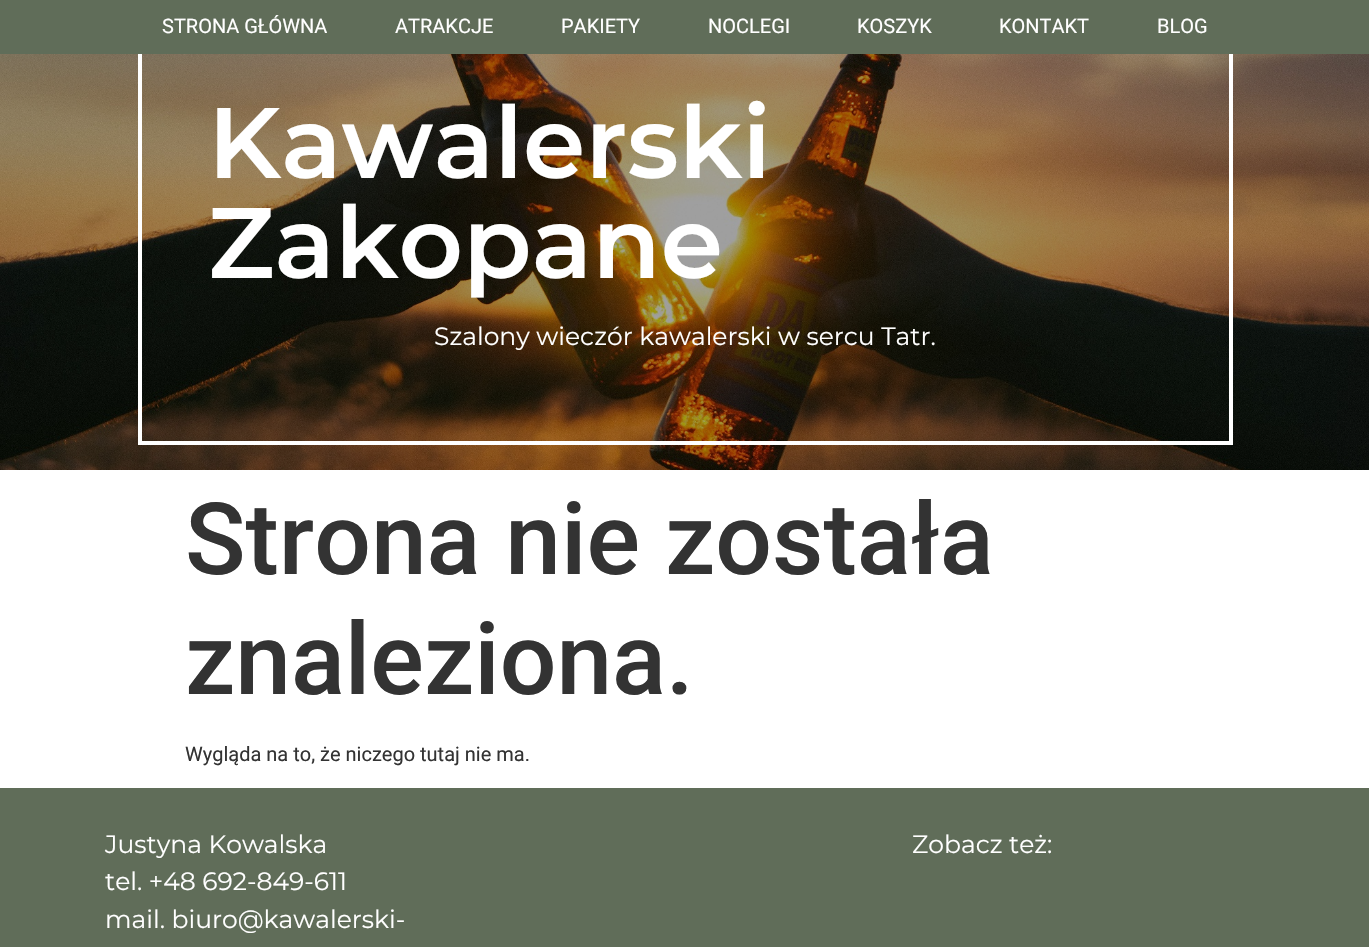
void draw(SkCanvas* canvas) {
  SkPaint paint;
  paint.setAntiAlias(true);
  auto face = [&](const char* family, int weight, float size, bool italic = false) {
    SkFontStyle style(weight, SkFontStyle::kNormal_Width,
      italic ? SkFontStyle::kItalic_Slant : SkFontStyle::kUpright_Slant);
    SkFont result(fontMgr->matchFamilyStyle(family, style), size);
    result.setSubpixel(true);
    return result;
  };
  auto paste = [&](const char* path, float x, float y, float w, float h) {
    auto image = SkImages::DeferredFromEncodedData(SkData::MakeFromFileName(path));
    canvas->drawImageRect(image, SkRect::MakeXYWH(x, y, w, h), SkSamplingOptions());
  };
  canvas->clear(0xffffffff);
  paste("img/1.png", 0, 54, 1369, 416);
  paint.setStroke(true);
  paint.setStrokeWidth(4);
  paint.setColor(0xffffffff);
  canvas->drawRect(SkRect::MakeXYWH(140, 23, 1091, 420), paint);
  paint.setStroke(false);
  paint.setColor(0xff606d59);
  canvas->drawRect(SkRect::MakeXYWH(0, 0, 1369, 54), paint);
  canvas->drawRect(SkRect::MakeXYWH(0, 788, 1369, 159), paint);
  auto f0 = face("Roboto", 400, 20);
  paint.setColor(0xffffffff);
  {
    const struct { const char* s; float x, y; } items[] = {
      {"STRONA GŁÓWNA", 162, 33},
      {"ATRAKCJE", 395, 33},
      {"PAKIETY", 561, 33},
      {"NOCLEGI", 708, 33},
      {"KOSZYK", 857, 33},
      {"KONTAKT", 999, 33},
      {"BLOG", 1157, 33},
    };
    for (auto [s, x, y] : items) {
      canvas->drawString(s, x, y, f0, paint);
    }
  }
  auto f1 = face("Montserrat", 600, 100);
  canvas->drawString("Kawalerski", 208, 178, f1, paint);
  canvas->drawString("Zakopane", 208, 278, f1, paint);
  auto f2 = face("Montserrat", 400, 25);
  canvas->drawString("Szalony wieczór kawalerski w sercu Tatr.", 434, 345, f2, paint);
  auto f3 = face("Roboto", 500, 100);
  paint.setColor(0xff333333);
  canvas->drawString("Strona nie została", 185, 574, f3, paint);
  canvas->drawString("znaleziona.", 185, 694, f3, paint);
  canvas->drawString("Wygląda na to, że niczego tutaj nie ma.", 185, 761, f0, paint);
  paint.setColor(0xffffffff);
  {
    const struct { const char* s; float x, y; } items[] = {
      {"Justyna Kowalska", 105, 853},
      {"tel. +48 692-849-611", 105, 890},
      {"mail. biuro@kawalerski-", 105, 928},
      {"Zobacz też:", 912, 853},
    };
    for (auto [s, x, y] : items) {
      canvas->drawString(s, x, y, f2, paint);
    }
  }
}
